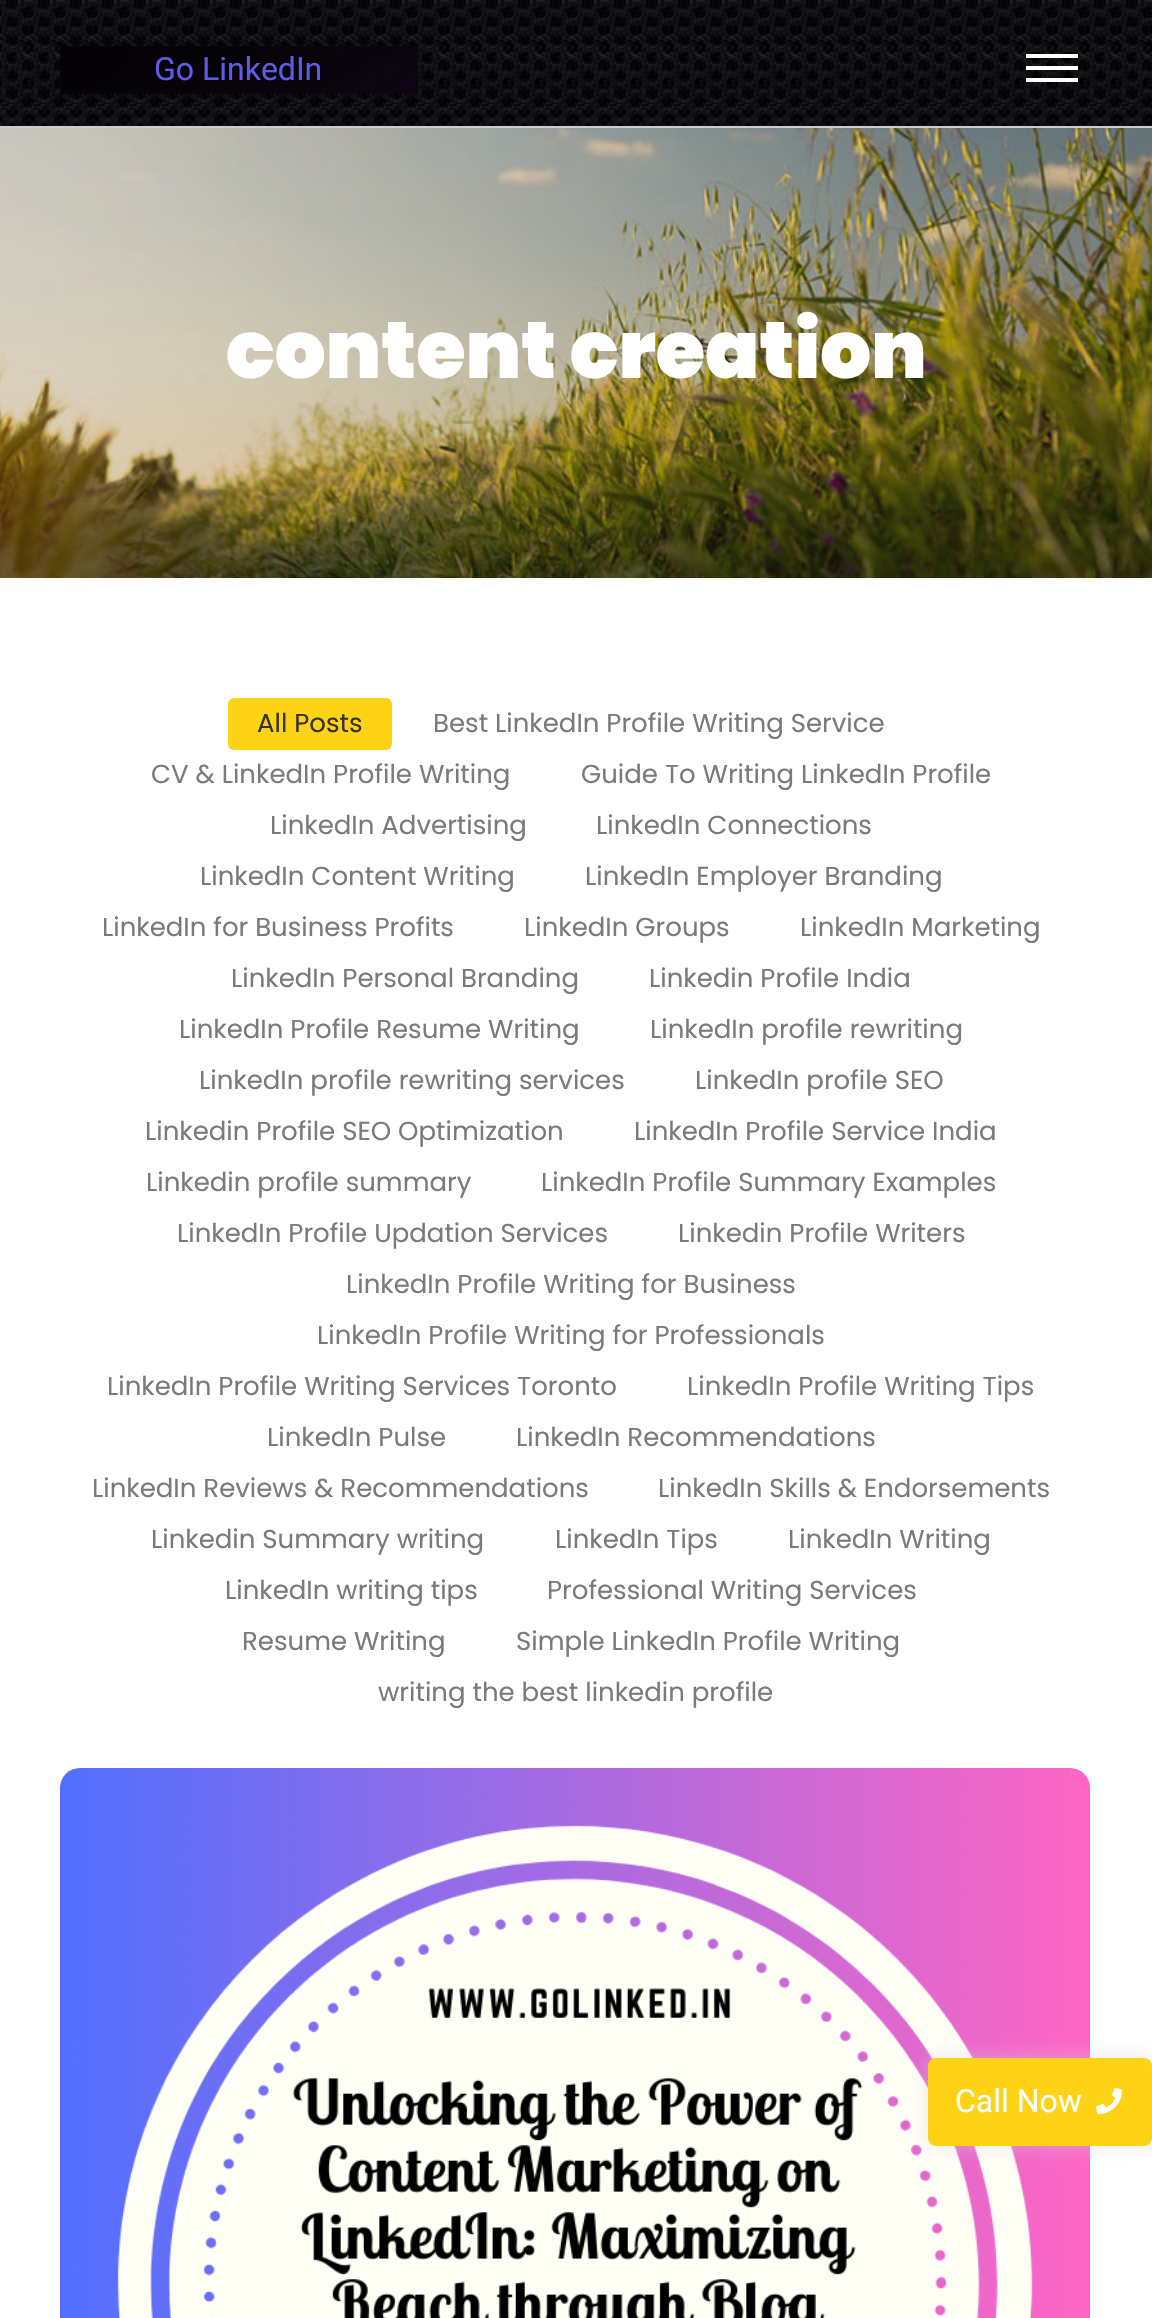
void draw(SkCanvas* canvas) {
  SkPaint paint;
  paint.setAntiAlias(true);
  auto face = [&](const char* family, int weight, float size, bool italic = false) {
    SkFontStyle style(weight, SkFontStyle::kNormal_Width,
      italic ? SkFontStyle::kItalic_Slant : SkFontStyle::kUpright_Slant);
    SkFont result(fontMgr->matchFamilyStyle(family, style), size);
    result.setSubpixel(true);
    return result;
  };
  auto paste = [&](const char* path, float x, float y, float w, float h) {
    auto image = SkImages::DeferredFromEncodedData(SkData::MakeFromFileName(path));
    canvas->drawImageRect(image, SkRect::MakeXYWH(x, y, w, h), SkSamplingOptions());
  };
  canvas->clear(0xffffffff);
  paste("img/1.png", 0, 0, 1152, 126);
  paint.setColor(0xffcecece);
  canvas->drawRect(SkRect::MakeXYWH(0, 126, 1152, 2), paint);
  paste("img/2.png", 60, 46, 358, 48);
  {
    const struct { float x, y, w, h; SkColor color; } items[] = {
      {1026, 54, 52, 4, 0xffffffff},
      {1026, 66, 52, 4, 0xffffffff},
      {1026, 78, 52, 4, 0xffffffff},
    };
    for (auto [x, y, w, h, color] : items) {
      paint.setColor(color);
      canvas->drawRect(SkRect::MakeXYWH(x, y, w, h), paint);
    }
  }
  paste("img/3.png", 0, 128, 1152, 450);
  paint.setColor(0xffffd315);
  canvas->drawRoundRect(SkRect::MakeXYWH(228, 698, 164, 52), 6, 6, paint);
  paste("img/4.png", 60, 1768, 1030, 550);
  paint.setColor(0x80cfcfcf);
  paint.setMaskFilter(SkMaskFilter::MakeBlur(kNormal_SkBlurStyle, 10));
  canvas->drawRoundRect(SkRect::MakeXYWH(928, 2058, 224, 88), 8, 8, paint);
  paint.setMaskFilter(nullptr);
  paint.setColor(0xffffd315);
  canvas->drawRoundRect(SkRect::MakeXYWH(928, 2058, 224, 88), 8, 8, paint);
  paste("img/5.png", 1096, 2088, 26, 26);
  auto f0 = face("Roboto", 400, 32);
  paint.setColor(0xff605be5);
  canvas->drawString("Go LinkedIn", 154, 80, f0, paint);
  auto f1 = face("Poppins", 900, 80);
  paint.setColor(0xffffffff);
  canvas->drawString("content creation", 226, 378, f1, paint);
  auto f2 = face("Poppins", 400, 26);
  paint.setColor(0xff333333);
  canvas->drawString("All Posts", 257, 732, f2, paint);
  paint.setColor(0xff7a7a7a);
  {
    const struct { const char* s; float x, y; } items[] = {
      {"Best LinkedIn Profile Writing Service", 433, 732},
      {"CV & LinkedIn Profile Writing", 151, 783},
      {"Guide To Writing LinkedIn Profile", 581, 783},
      {"LinkedIn Advertising", 270, 834},
      {"LinkedIn Connections", 596, 834},
      {"LinkedIn Content Writing", 200, 885},
      {"LinkedIn Employer Branding", 585, 885},
      {"LinkedIn for Business Profits", 102, 936},
      {"LinkedIn Groups", 524, 936},
      {"LinkedIn Marketing", 800, 936},
      {"LinkedIn Personal Branding", 231, 987},
      {"Linkedin Profile India", 649, 987},
      {"LinkedIn Profile Resume Writing", 179, 1038},
      {"LinkedIn profile rewriting", 650, 1038},
      {"LinkedIn profile rewriting services", 199, 1089},
      {"LinkedIn profile SEO", 695, 1089},
      {"Linkedin Profile SEO Optimization", 145, 1140},
      {"LinkedIn Profile Service India", 634, 1140},
      {"Linkedin profile summary", 146, 1191},
      {"LinkedIn Profile Summary Examples", 541, 1191},
      {"LinkedIn Profile Updation Services", 177, 1242},
      {"Linkedin Profile Writers", 678, 1242},
      {"LinkedIn Profile Writing for Business", 346, 1293},
      {"LinkedIn Profile Writing for Professionals", 317, 1344},
      {"LinkedIn Profile Writing Services Toronto", 107, 1395},
      {"LinkedIn Profile Writing Tips", 687, 1395},
      {"LinkedIn Pulse", 267, 1446},
      {"LinkedIn Recommendations", 516, 1446},
      {"LinkedIn Reviews & Recommendations", 92, 1497},
      {"LinkedIn Skills & Endorsements", 658, 1497},
      {"Linkedin Summary writing", 151, 1548},
      {"LinkedIn Tips", 555, 1548},
      {"LinkedIn Writing", 788, 1548},
      {"LinkedIn writing tips", 225, 1599},
      {"Professional Writing Services", 547, 1599},
      {"Resume Writing", 242, 1650},
      {"Simple LinkedIn Profile Writing", 516, 1650},
      {"writing the best linkedin profile", 378, 1701},
    };
    for (auto [s, x, y] : items) {
      canvas->drawString(s, x, y, f2, paint);
    }
  }
  paint.setColor(0xffffffff);
  canvas->drawString("Call Now", 955, 2112, f0, paint);
}
